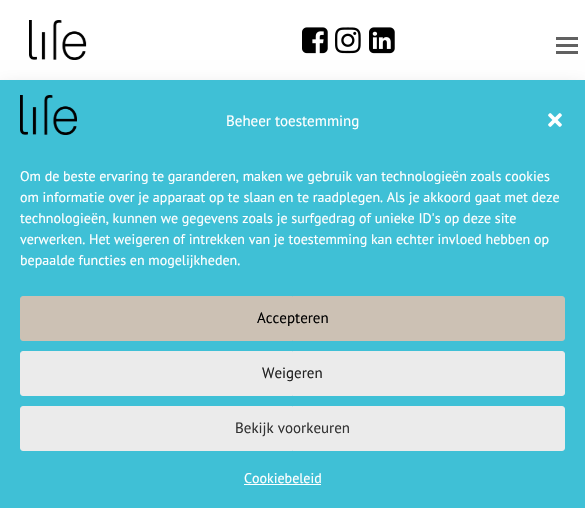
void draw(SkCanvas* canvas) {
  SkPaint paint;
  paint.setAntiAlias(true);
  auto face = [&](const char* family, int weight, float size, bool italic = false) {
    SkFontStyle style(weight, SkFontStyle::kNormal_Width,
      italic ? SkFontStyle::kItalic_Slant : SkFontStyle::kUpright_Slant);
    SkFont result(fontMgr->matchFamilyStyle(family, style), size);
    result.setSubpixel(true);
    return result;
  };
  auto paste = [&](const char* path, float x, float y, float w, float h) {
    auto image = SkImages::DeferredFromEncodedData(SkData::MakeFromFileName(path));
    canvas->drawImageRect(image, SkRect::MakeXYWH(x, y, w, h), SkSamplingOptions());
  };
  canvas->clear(0xffffffff);
  paste("img/1.png", 29, 20, 58, 40);
  paste("img/2.png", 302, 27, 26, 27);
  paste("img/3.png", 335, 27, 26, 27);
  paste("img/4.png", 369, 27, 26, 27);
  {
    const struct { float x, y, w, h; SkColor color; } items[] = {
      {556, 44, 22, 3, 0xff616161},
      {556, 37, 22, 3, 0xff616161},
      {556, 51, 22, 3, 0xff616161},
    };
    for (auto [x, y, w, h, color] : items) {
      paint.setColor(color);
      canvas->drawRect(SkRect::MakeXYWH(x, y, w, h), paint);
    }
  }
  paint.setColor(0x30000000);
  paint.setMaskFilter(SkMaskFilter::MakeBlur(kNormal_SkBlurStyle, 10));
  canvas->drawRect(SkRect::MakeXYWH(0, 90, 585, 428), paint);
  paint.setMaskFilter(nullptr);
  paint.setColor(0xff3fc0d6);
  canvas->drawRect(SkRect::MakeXYWH(0, 80, 585, 428), paint);
  paste("img/5.png", 20, 95, 57, 40);
  paste("img/6.png", 548, 113, 14, 14);
  paint.setColor(0xffccc1b4);
  canvas->drawRoundRect(SkRect::MakeXYWH(20.5f, 296.5f, 544, 44), 2.5f, 2.5f, paint);
  paint.setStroke(true);
  paint.setStrokeWidth(1);
  canvas->drawRoundRect(SkRect::MakeXYWH(20.5f, 296.5f, 544, 44), 2.5f, 2.5f, paint);
  paint.setStroke(false);
  paint.setColor(0xffebebeb);
  canvas->drawRoundRect(SkRect::MakeXYWH(20.5f, 351.5f, 544, 44), 2.5f, 2.5f, paint);
  paint.setStroke(true);
  canvas->drawRoundRect(SkRect::MakeXYWH(20.5f, 351.5f, 544, 44), 2.5f, 2.5f, paint);
  paint.setStroke(false);
  canvas->drawRoundRect(SkRect::MakeXYWH(20.5f, 406.5f, 544, 44), 2.5f, 2.5f, paint);
  paint.setStroke(true);
  canvas->drawRoundRect(SkRect::MakeXYWH(20.5f, 406.5f, 544, 44), 2.5f, 2.5f, paint);
  paint.setStroke(false);
  paint.setColor(0xffffffff);
  canvas->drawRect(SkRect::MakeXYWH(244, 484, 77, 1), paint);
  auto f0 = face("PT Sans", 400, 15);
  canvas->drawString("Beheer toestemming", 226, 126, f0, paint);
  auto f1 = face("PT Sans", 400, 14);
  {
    const struct { const char* s; float x, y; } items[] = {
      {"Om de beste ervaring te garanderen, maken we gebruik van technologieën zoals cookies", 20, 181},
      {"om informatie over je apparaat op te slaan en te raadplegen. Als je akkoord gaat met deze", 20, 202},
      {"technologieën, kunnen we gegevens zoals je surfgedrag of unieke ID's op deze site", 20, 223},
      {"verwerken. Het weigeren of intrekken van je toestemming kan echter invloed hebben op", 20, 244},
      {"bepaalde functies en mogelijkheden.", 20, 265},
    };
    for (auto [s, x, y] : items) {
      canvas->drawString(s, x, y, f1, paint);
    }
  }
  paint.setColor(0xff000000);
  canvas->drawString("Accepteren", 257, 323, f0, paint);
  paint.setColor(0xff222222);
  canvas->drawString("Weigeren", 262, 378, f0, paint);
  paint.setColor(0xff333333);
  canvas->drawString("Bekijk voorkeuren", 235, 433, f0, paint);
  paint.setColor(0xffffffff);
  canvas->drawString("Cookiebeleid", 244, 483, f1, paint);
}
